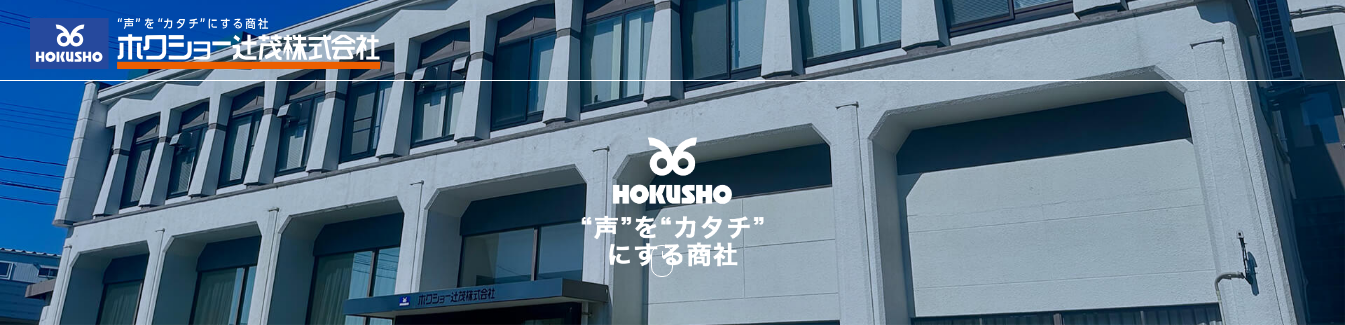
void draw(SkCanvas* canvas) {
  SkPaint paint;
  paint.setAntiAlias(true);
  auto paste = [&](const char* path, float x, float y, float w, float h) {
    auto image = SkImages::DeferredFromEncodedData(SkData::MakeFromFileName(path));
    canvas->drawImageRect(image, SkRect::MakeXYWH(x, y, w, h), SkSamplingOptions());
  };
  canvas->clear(0xffffffff);
  paste("img/1.png", 0, 0, 1345, 325);
  paste("img/2.png", 581, 137, 183, 130);
  paint.setStroke(true);
  paint.setStrokeWidth(1);
  paint.setColor(0xffffffff);
  canvas->drawRoundRect(SkRect::MakeXYWH(651.5f, 245.5f, 21, 31), 9.5f, 9.5f, paint);
  paint.setStroke(false);
  canvas->drawRect(SkRect::MakeXYWH(662, 251, 1, 6), paint);
  canvas->drawRect(SkRect::MakeXYWH(0, 80, 1345, 1), paint);
  paste("img/3.png", 30, 18, 350, 51);
}
